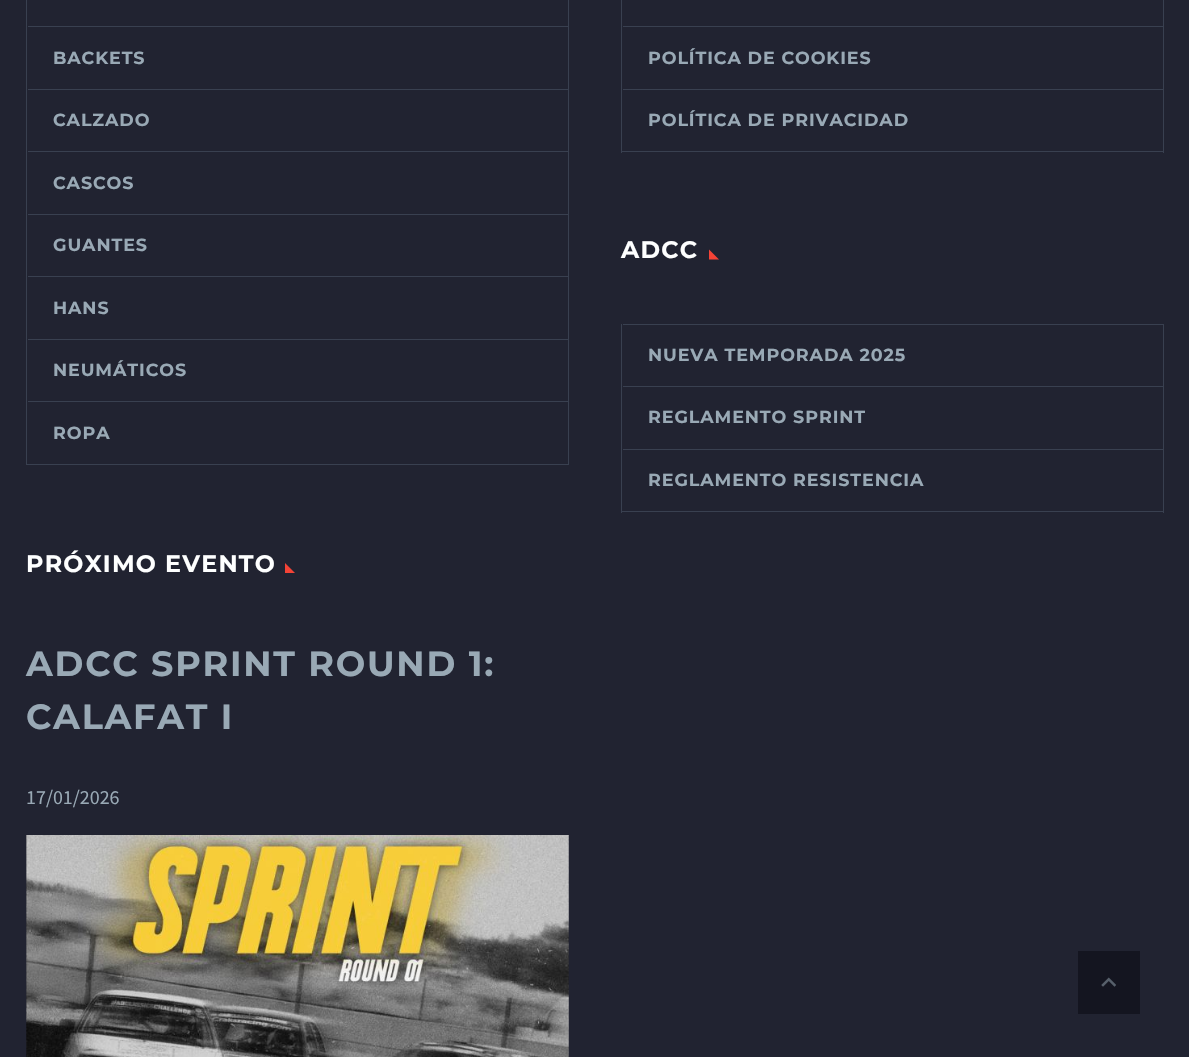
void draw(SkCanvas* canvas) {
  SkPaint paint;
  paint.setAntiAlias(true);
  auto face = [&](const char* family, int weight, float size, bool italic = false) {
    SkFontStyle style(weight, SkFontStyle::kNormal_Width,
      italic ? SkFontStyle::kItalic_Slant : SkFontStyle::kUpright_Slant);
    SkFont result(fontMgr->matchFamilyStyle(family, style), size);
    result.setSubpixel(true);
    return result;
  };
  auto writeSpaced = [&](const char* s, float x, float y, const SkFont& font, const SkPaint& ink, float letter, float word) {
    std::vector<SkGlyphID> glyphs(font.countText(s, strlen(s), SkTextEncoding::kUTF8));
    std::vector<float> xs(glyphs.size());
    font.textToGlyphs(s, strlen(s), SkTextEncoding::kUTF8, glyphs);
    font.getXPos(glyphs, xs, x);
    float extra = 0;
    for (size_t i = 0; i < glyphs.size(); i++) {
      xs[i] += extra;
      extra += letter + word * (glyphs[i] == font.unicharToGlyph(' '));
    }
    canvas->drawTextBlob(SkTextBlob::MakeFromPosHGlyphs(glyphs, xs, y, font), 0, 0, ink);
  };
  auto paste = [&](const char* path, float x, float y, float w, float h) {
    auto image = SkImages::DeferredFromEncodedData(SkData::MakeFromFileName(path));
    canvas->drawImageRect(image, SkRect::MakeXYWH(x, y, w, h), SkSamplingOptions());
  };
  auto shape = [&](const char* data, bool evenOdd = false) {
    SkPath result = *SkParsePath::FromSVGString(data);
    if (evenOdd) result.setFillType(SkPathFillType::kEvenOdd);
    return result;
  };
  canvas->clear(0xff212331);
  {
    const struct { float x, y, w, h; SkColor color; } items[] = {
      {568, 0, 1, 465, 0xff394050},
      {26, 464, 543, 1, 0xff394050},
      {26, 0, 1, 465, 0xff394050},
      {28, 26, 540, 1, 0xff394050},
      {28, 89, 540, 1, 0xff394050},
      {28, 151, 540, 1, 0xff394050},
      {28, 214, 540, 1, 0xff394050},
      {28, 276, 540, 1, 0xff394050},
      {28, 339, 540, 1, 0xff394050},
      {28, 401, 540, 1, 0xff394050},
      {1163, 0, 1, 153, 0xff394050},
      {621, 151, 543, 1, 0xff394050},
      {621, 0, 1, 153, 0xff394050},
      {623, 26, 540, 1, 0xff394050},
      {623, 89, 540, 1, 0xff394050},
    };
    for (auto [x, y, w, h, color] : items) {
      paint.setColor(color);
      canvas->drawRect(SkRect::MakeXYWH(x, y, w, h), paint);
    }
  }
  paint.setColor(0xfff44336);
  canvas->drawPath(shape("M709 249.5V259.5H719Z"), paint);
  {
    const struct { float x, y, w, h; SkColor color; } items[] = {
      {1163, 324, 1, 189, 0xff394050},
      {621, 511, 543, 1, 0xff394050},
      {621, 324, 1, 189, 0xff394050},
      {623, 324, 540, 1, 0xff394050},
      {623, 386, 540, 1, 0xff394050},
      {623, 449, 540, 1, 0xff394050},
    };
    for (auto [x, y, w, h, color] : items) {
      paint.setColor(color);
      canvas->drawRect(SkRect::MakeXYWH(x, y, w, h), paint);
    }
  }
  paint.setColor(0xfff44336);
  canvas->drawPath(shape("M285 563V573H295Z"), paint);
  paste("img/1.png", 26, 835, 543, 222);
  paint.setColor(0xff141520);
  canvas->drawRect(SkRect::MakeXYWH(1078, 951, 62, 63), paint);
  paste("img/2.png", 1101, 977, 15, 10);
  auto f0 = face("Montserrat", 700, 17.5f);
  paint.setColor(0xff99a9b5);
  {
    const struct { const char* s; float x, y; } items[] = {
      {"BACKETS", 53, 64},
      {"CALZADO", 53, 126},
      {"CASCOS", 53, 189},
      {"GUANTES", 53, 251},
      {"HANS", 53, 314},
      {"NEUMÁTICOS", 53, 376},
      {"ROPA", 53, 439},
      {"POLÍTICA DE COOKIES", 648, 64},
      {"POLÍTICA DE PRIVACIDAD", 648, 126},
    };
    for (auto [s, x, y] : items) {
      writeSpaced(s, x, y, f0, paint, 0.9f, 0);
    }
  }
  auto f1 = face("Montserrat", 700, 23.75f);
  paint.setColor(0xfffeffff);
  writeSpaced("ADCC", 621, 258, f1, paint, 1.25f, 0);
  paint.setColor(0xff99a9b5);
  {
    const struct { const char* s; float x, y; } items[] = {
      {"NUEVA TEMPORADA 2025", 648, 361},
      {"REGLAMENTO SPRINT", 648, 423},
      {"REGLAMENTO RESISTENCIA", 648, 486},
    };
    for (auto [s, x, y] : items) {
      writeSpaced(s, x, y, f0, paint, 0.9f, 0);
    }
  }
  paint.setColor(0xfffeffff);
  writeSpaced("PRÓXIMO EVENTO", 26, 572, f1, paint, 1.25f, 0);
  auto f2 = face("Montserrat", 700, 35);
  paint.setColor(0xff99a9b5);
  writeSpaced("ADCC SPRINT ROUND 1:", 26, 676, f2, paint, 1.75f, 0);
  writeSpaced("CALAFAT I", 26, 729, f2, paint, 1.75f, 0);
  auto f3 = face("Source Sans Pro", 400, 20);
  canvas->drawString("17/01/2026", 26, 804, f3, paint);
}
